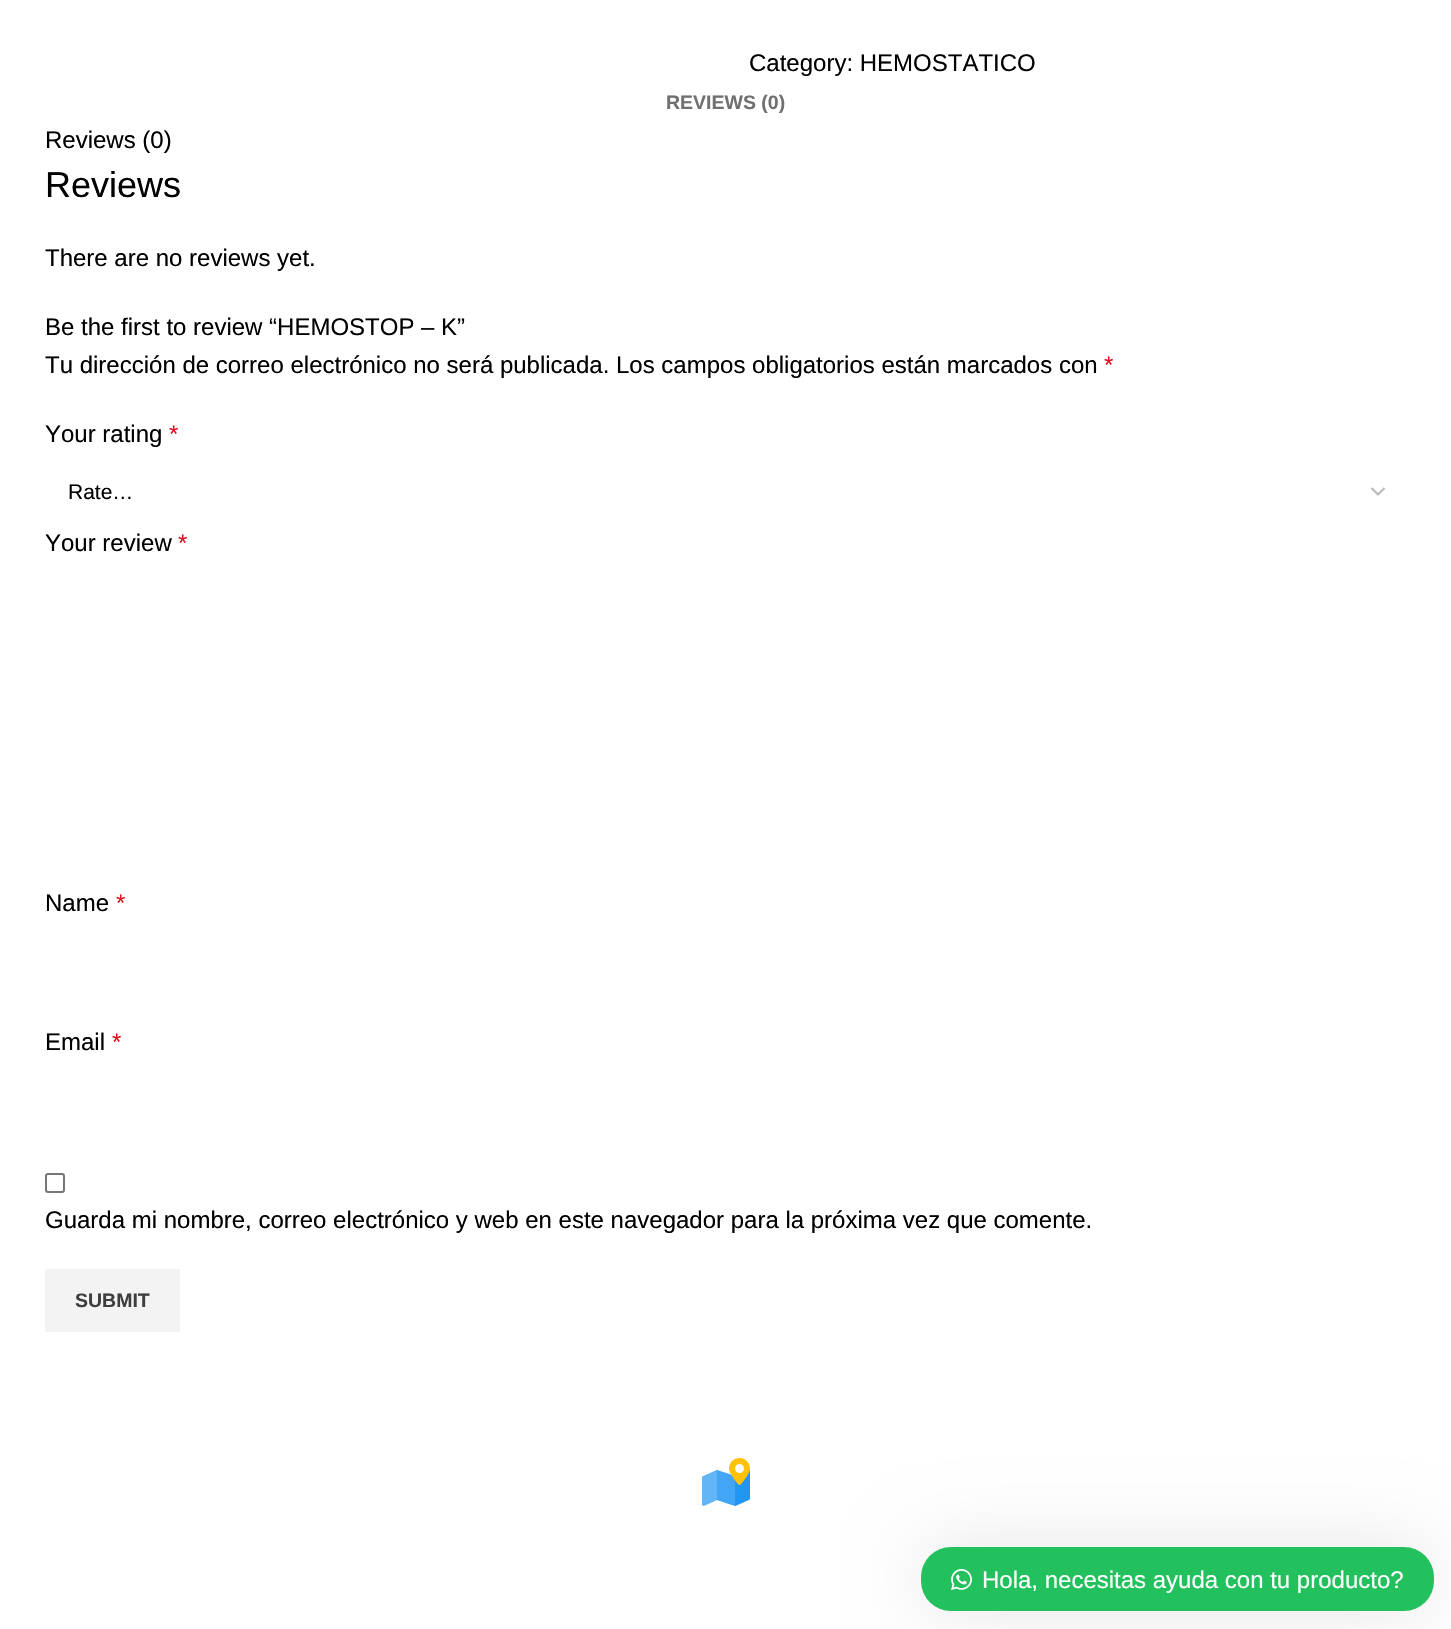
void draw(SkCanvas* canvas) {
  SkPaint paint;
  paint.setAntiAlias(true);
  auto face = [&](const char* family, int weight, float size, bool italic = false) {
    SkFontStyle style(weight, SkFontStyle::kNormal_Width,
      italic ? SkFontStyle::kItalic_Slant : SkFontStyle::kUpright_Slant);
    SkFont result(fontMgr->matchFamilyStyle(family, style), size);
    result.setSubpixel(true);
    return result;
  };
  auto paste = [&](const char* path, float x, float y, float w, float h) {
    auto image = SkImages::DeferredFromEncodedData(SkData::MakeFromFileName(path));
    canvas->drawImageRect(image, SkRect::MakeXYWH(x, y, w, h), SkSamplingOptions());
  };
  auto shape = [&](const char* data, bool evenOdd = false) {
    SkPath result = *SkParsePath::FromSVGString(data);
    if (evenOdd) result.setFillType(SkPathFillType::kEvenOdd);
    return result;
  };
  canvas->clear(0xffffffff);
  paint.setStroke(true);
  paint.setStrokeWidth(2.2f);
  paint.setColor(0xffbbbbbb);
  canvas->drawPath(shape("M1371.5 488L1378 494.5L1384.5 488"), paint);
  paint.setStrokeWidth(2);
  paint.setColor(0xff767676);
  canvas->drawRoundRect(SkRect::MakeXYWH(46, 1174, 18, 18), 2, 2, paint);
  paint.setStroke(false);
  paint.setColor(0xfff3f3f3);
  canvas->drawRect(SkRect::MakeXYWH(45, 1269, 135, 63), paint);
  paste("img/1.png", 702, 1458, 48, 48);
  paint.setColor(0x1a000000);
  paint.setMaskFilter(SkMaskFilter::MakeBlur(kNormal_SkBlurStyle, 37.5f));
  canvas->drawRoundRect(SkRect::MakeXYWH(921, 1547, 513, 64), 30, 30, paint);
  paint.setMaskFilter(nullptr);
  paint.setColor(0xff22c15e);
  canvas->drawRoundRect(SkRect::MakeXYWH(921, 1547, 513, 64), 30, 30, paint);
  paste("img/2.png", 951, 1569, 21, 21);
  auto f0 = face("Liberation Sans", 400, 24);
  paint.setColor(0xff000000);
  canvas->drawString("Category: HEMOSTATICO", 749, 71, f0, paint);
  auto f1 = face("Liberation Sans", 700, 19.5f);
  paint.setColor(0xff707070);
  canvas->drawString("REVIEWS (0)", 666, 109, f1, paint);
  paint.setColor(0xff000000);
  canvas->drawString("Reviews (0)", 45, 148, f0, paint);
  auto f2 = face("Liberation Sans", 400, 36);
  canvas->drawString("Reviews", 45, 197, f2, paint);
  {
    const struct { const char* s; float x, y; } items[] = {
      {"There are no reviews yet.", 45, 266},
      {"Be the first to review “HEMOSTOP – K”", 45, 335},
      {"Tu dirección de correo electrónico no será publicada. Los campos obligatorios están marcados con", 45, 373},
    };
    for (auto [s, x, y] : items) {
      canvas->drawString(s, x, y, f0, paint);
    }
  }
  paint.setColor(0xffe01020);
  canvas->drawString("*", 1104, 373, f0, paint);
  paint.setColor(0xff000000);
  canvas->drawString("Your rating", 45, 442, f0, paint);
  paint.setColor(0xffe01020);
  canvas->drawString("*", 169, 442, f0, paint);
  auto f3 = face("Liberation Sans", 400, 21);
  paint.setColor(0xff000000);
  canvas->drawString("Rate…", 68, 499, f3, paint);
  canvas->drawString("Your review", 45, 551, f0, paint);
  paint.setColor(0xffe01020);
  canvas->drawString("*", 178, 551, f0, paint);
  paint.setColor(0xff000000);
  canvas->drawString("Name", 45, 911, f0, paint);
  paint.setColor(0xffe01020);
  canvas->drawString("*", 116, 911, f0, paint);
  paint.setColor(0xff000000);
  canvas->drawString("Email", 45, 1050, f0, paint);
  paint.setColor(0xffe01020);
  canvas->drawString("*", 112, 1050, f0, paint);
  paint.setColor(0xff000000);
  canvas->drawString("Guarda mi nombre, correo electrónico y web en este navegador para la próxima vez que comente.", 45, 1228, f0, paint);
  paint.setColor(0xff3e3e3e);
  canvas->drawString("SUBMIT", 75, 1307, f1, paint);
  paint.setColor(0xffffffff);
  canvas->drawString("Hola, necesitas ayuda con tu producto?", 982, 1588, f0, paint);
}
